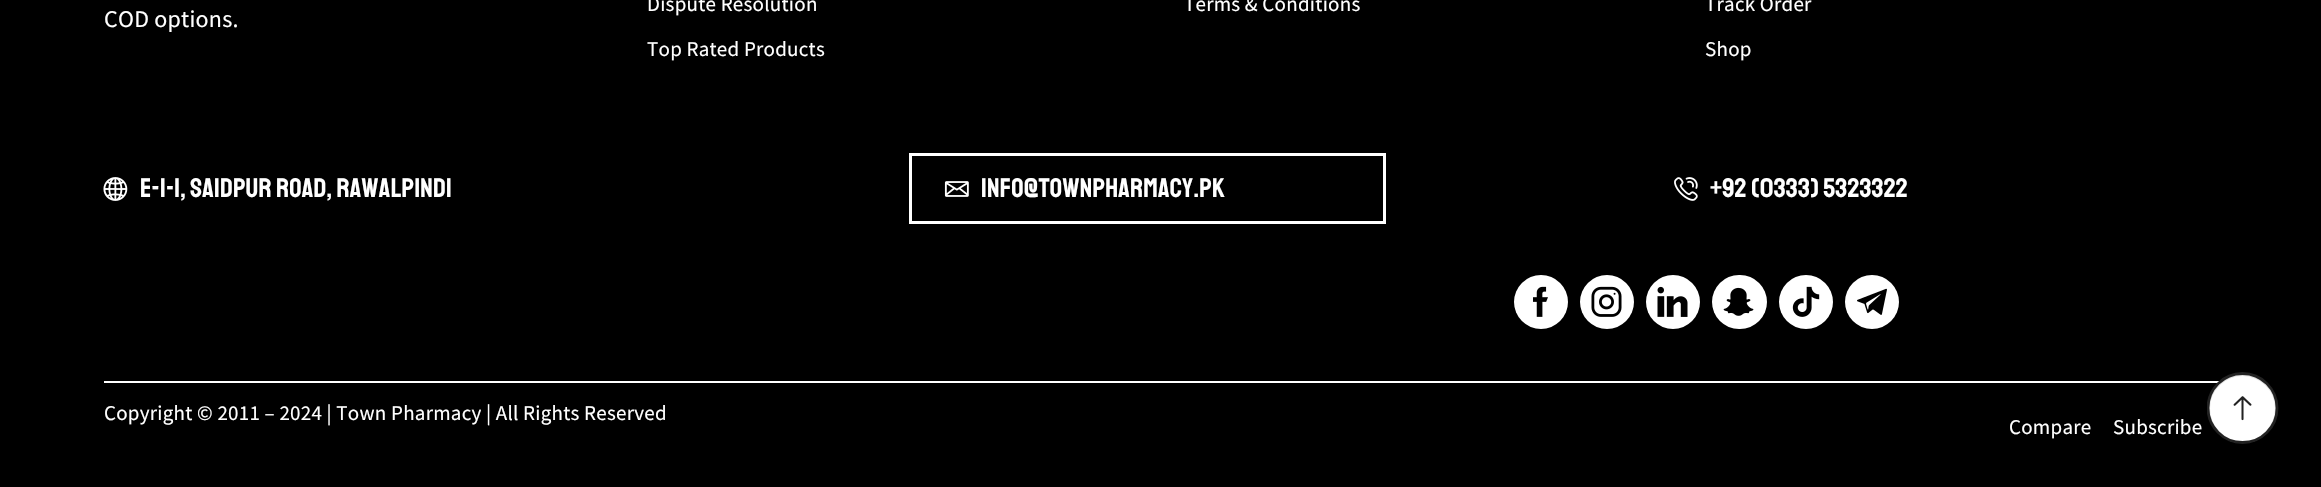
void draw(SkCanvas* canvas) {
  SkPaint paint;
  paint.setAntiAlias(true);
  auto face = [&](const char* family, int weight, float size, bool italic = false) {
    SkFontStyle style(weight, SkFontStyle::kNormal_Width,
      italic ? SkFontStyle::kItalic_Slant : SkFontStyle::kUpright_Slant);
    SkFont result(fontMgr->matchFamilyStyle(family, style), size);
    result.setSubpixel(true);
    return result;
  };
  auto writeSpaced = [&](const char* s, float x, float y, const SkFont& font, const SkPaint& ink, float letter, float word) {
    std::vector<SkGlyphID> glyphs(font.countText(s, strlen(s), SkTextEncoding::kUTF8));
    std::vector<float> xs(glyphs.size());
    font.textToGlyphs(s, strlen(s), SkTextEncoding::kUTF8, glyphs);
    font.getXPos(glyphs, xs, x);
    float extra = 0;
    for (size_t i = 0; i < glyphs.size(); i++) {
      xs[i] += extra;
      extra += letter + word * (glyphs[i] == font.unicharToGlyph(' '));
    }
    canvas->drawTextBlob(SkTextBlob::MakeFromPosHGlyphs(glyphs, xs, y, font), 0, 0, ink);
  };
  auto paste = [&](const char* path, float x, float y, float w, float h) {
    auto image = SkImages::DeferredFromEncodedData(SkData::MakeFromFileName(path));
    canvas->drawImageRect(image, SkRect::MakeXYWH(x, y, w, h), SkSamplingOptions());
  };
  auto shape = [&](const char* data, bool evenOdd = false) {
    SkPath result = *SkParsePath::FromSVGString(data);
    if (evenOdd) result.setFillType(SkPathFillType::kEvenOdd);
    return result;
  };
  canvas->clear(0xff000000);
  paste("img/1.png", 103, 177, 25, 24);
  paint.setStroke(true);
  paint.setStrokeWidth(3);
  paint.setColor(0xffffffff);
  canvas->drawRect(SkRect::MakeXYWH(910.5f, 154.5f, 474, 68), paint);
  paste("img/2.png", 944, 181, 25, 16);
  paste("img/3.png", 1674, 177, 24, 24);
  paint.setStroke(false);
  canvas->drawRect(SkRect::MakeXYWH(104, 381, 2115, 2), paint);
  canvas->drawCircle(1541, 302, 27, paint);
  paste("img/4.png", 1533, 286, 15, 31);
  canvas->drawCircle(1607, 302, 27, paint);
  paste("img/5.png", 1591, 286, 31, 31);
  canvas->drawCircle(1673, 302, 27, paint);
  paste("img/6.png", 1657, 286, 31, 31);
  canvas->drawRoundRect(SkRect::MakeXYWH(1712, 275, 55, 54), 27, 27, paint);
  paste("img/7.png", 1723, 287, 31, 29);
  canvas->drawCircle(1806, 302, 27, paint);
  paste("img/8.png", 1792, 286, 28, 31);
  canvas->drawCircle(1872, 302, 27, paint);
  paste("img/9.png", 1857, 288, 30, 27);
  canvas->drawCircle(2242.5f, 408.5f, 33.5f, paint);
  paint.setStroke(true);
  paint.setStrokeWidth(2);
  paint.setColor(0xffe1e1e1);
  canvas->drawCircle(2242.5f, 408.5f, 33.5f, paint);
  canvas->save();
  canvas->clipRect(SkRect::MakeXYWH(2207, 372, 72, 72));
  paint.setStrokeWidth(2.8f);
  paint.setColor(0xff222222);
  canvas->drawPath(shape("M2242.5 373.5C2261.5 373.5 2277 389 2277 408C2277 427 2261.5 442.5 2242.5 442.5C2223.5 442.5 2208 427 2208 408C2208 389 2223.5 373.5 2242.5 373.5"), paint);
  canvas->restore();
  paste("img/10.png", 2233, 396, 19, 25);
  auto f0 = face("Source Sans Pro", 400, 24);
  paint.setStroke(false);
  paint.setColor(0xffffffff);
  writeSpaced("COD options.", 104, 27, f0, paint, 0.25f, 0);
  auto f1 = face("Source Sans Pro", 400, 21);
  {
    const struct { const char* s; float x, y; } items[] = {
      {"Dispute Resolution", 647, 11},
      {"Top Rated Products", 647, 56},
      {"Terms & Conditions", 1184, 11},
      {"Track Order", 1705, 11},
      {"Shop", 1705, 56},
    };
    for (auto [s, x, y] : items) {
      writeSpaced(s, x, y, f1, paint, 0.25f, 0);
    }
  }
  auto f2 = face("Staatliches", 400, 27);
  {
    const struct { const char* s; float x, y; } items[] = {
      {"E-1-1, Saidpur Road, Rawalpindi", 140, 197},
      {"info@townpharmacy.pk", 981, 197},
      {"+92 (0333) 5323322", 1710, 197},
    };
    for (auto [s, x, y] : items) {
      writeSpaced(s, x, y, f2, paint, 0.25f, 0);
    }
  }
  {
    const struct { const char* s; float x, y; } items[] = {
      {"Copyright © 2011 – 2024 | Town Pharmacy | All Rights Reserved", 104, 420},
      {"Compare", 2009, 434},
      {"Subscribe", 2113, 434},
    };
    for (auto [s, x, y] : items) {
      writeSpaced(s, x, y, f1, paint, 0.25f, 0);
    }
  }
}
